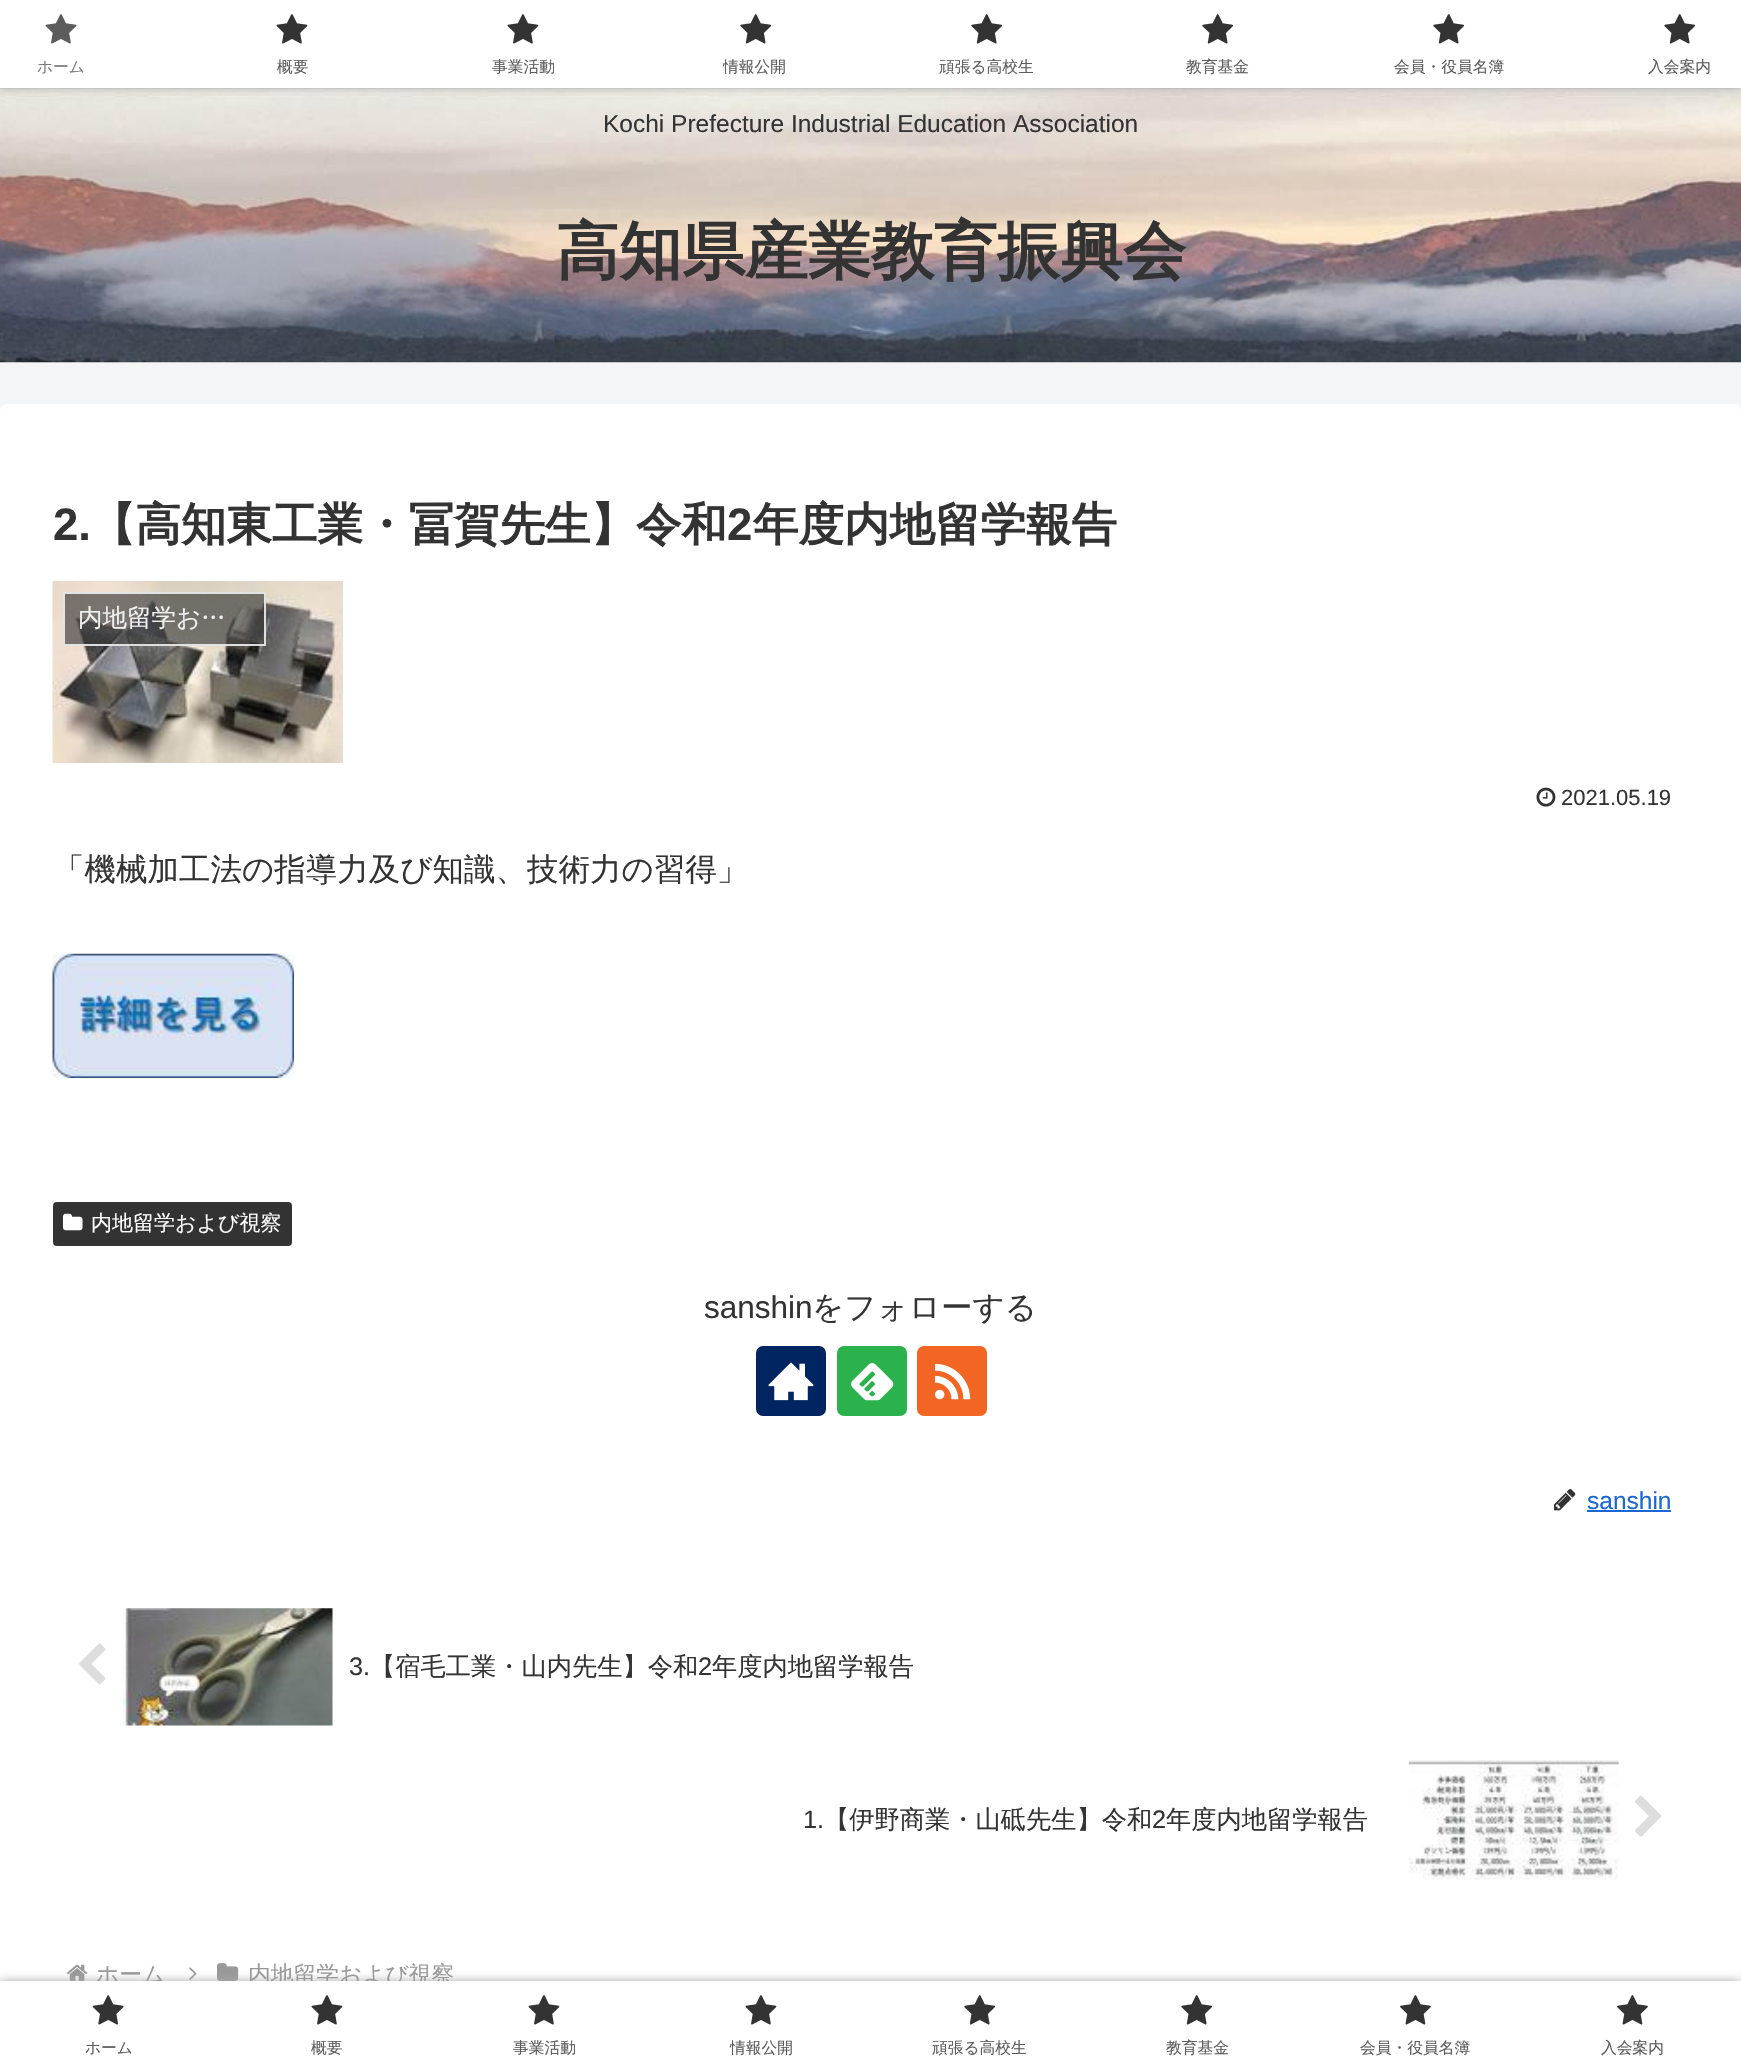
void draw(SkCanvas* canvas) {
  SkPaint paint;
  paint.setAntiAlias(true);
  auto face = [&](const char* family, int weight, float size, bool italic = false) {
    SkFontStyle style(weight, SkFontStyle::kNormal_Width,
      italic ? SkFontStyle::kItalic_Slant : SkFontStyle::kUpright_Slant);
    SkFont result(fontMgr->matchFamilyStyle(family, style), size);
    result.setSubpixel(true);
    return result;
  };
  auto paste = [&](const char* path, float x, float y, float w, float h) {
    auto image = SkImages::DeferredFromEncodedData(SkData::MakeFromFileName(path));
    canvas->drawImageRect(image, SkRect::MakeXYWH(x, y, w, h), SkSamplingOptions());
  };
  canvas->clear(0xfff4f5f7);
  paste("img/4.png", 0, 88, 1741, 275);
  paint.setColor(0xffa9a9a9);
  paint.setMaskFilter(SkMaskFilter::MakeBlur(kNormal_SkBlurStyle, 4.5f));
  canvas->drawRect(SkRect::MakeXYWH(0, 0, 1741, 88), paint);
  paint.setMaskFilter(nullptr);
  paint.setColor(0xffffffff);
  canvas->drawRect(SkRect::MakeXYWH(0, 0, 1741, 88), paint);
  paste("img/1.png", 45, 14, 32, 30);
  paste("img/2.png", 276, 14, 32, 30);
  paste("img/2.png", 507, 14, 32, 30);
  paste("img/3.png", 740, 14, 32, 30);
  paste("img/3.png", 971, 14, 32, 30);
  paste("img/3.png", 1202, 14, 32, 30);
  paste("img/3.png", 1433, 14, 32, 30);
  paste("img/3.png", 1664, 14, 32, 30);
  canvas->drawRoundRect(SkRect::MakeXYWH(0, 404, 1741, 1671), 7, 7, paint);
  paste("img/5.png", 52, 581, 291, 182);
  paint.setColor(0xa1333333);
  canvas->drawRect(SkRect::MakeXYWH(63, 592, 203, 54), paint);
  paint.setStroke(true);
  paint.setStrokeWidth(2);
  paint.setColor(0xe6eeeeee);
  canvas->drawRect(SkRect::MakeXYWH(64, 593, 201, 52), paint);
  paste("img/6.png", 1536, 787, 20, 20);
  paste("img/7.png", 52, 953, 242, 125);
  paint.setStroke(false);
  paint.setColor(0xff333333);
  canvas->drawRoundRect(SkRect::MakeXYWH(53, 1202, 239, 44), 4, 4, paint);
  paste("img/8.png", 63, 1213, 20, 18);
  paint.setColor(0xff002561);
  canvas->drawRoundRect(SkRect::MakeXYWH(756, 1346, 70, 70), 7, 7, paint);
  paste("img/9.png", 768, 1362, 46, 39);
  paint.setColor(0xff2bb24c);
  canvas->drawRoundRect(SkRect::MakeXYWH(837, 1346, 70, 70), 7, 7, paint);
  paste("img/10.png", 851, 1363, 43, 38);
  paint.setColor(0xfff26522);
  canvas->drawRoundRect(SkRect::MakeXYWH(917, 1346, 70, 70), 7, 7, paint);
  paste("img/11.png", 935, 1363, 36, 37);
  paste("img/12.png", 1554, 1489, 22, 22);
  paint.setColor(0xff1967d2);
  canvas->drawRect(SkRect::MakeXYWH(1587, 1510, 84, 2), paint);
  paste("img/13.png", 79, 1643, 27, 42);
  paste("img/14.png", 122, 1608, 211, 118);
  paste("img/15.png", 1408, 1760, 211, 120);
  paste("img/16.png", 1635, 1795, 27, 42);
  paste("img/17.png", 67, 1964, 21, 17);
  paste("img/18.png", 189, 1967, 8, 13);
  paste("img/19.png", 217, 1963, 22, 18);
  paint.setColor(0xffa9a9a9);
  paint.setMaskFilter(SkMaskFilter::MakeBlur(kNormal_SkBlurStyle, 4.5f));
  canvas->drawRect(SkRect::MakeXYWH(0, 1981, 1741, 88), paint);
  paint.setMaskFilter(nullptr);
  auto f0 = face("WenQuanYi Zen Hei", 500, 15.75f);
  paint.setColor(0xff7c7c7c);
  canvas->drawString("ホーム", 37, 72, f0, paint);
  paint.setColor(0xff5c5c5c);
  {
    const struct { const char* s; float x, y; } items[] = {
      {"概要", 277, 72},
      {"事業活動", 492, 72},
      {"情報公開", 723, 72},
      {"頑張る高校生", 939, 72},
      {"教育基金", 1186, 72},
      {"会員・役員名簿", 1394, 72},
      {"入会案内", 1648, 72},
    };
    for (auto [s, x, y] : items) {
      canvas->drawString(s, x, y, f0, paint);
    }
  }
  auto f1 = face("Liberation Sans", 400, 24.5f);
  paint.setColor(0xff333333);
  canvas->drawString("Kochi Prefecture Industrial Education Association", 603, 132, f1, paint);
  auto f2 = face("WenQuanYi Zen Hei", 700, 63);
  canvas->drawString("高知県産業教育振興会", 556, 273, f2, paint);
  auto f3 = face("Liberation Sans", 700, 45.5f);
  canvas->drawString("2.", 53, 540, f3, paint);
  auto f4 = face("WenQuanYi Zen Hei", 700, 45.5f);
  canvas->drawString("【高知東工業・冨賀先生】令和", 90, 540, f4, paint);
  canvas->drawString("2", 727, 540, f3, paint);
  canvas->drawString("年度内地留学報告", 753, 540, f4, paint);
  auto f5 = face("WenQuanYi Zen Hei", 500, 24.5f);
  paint.setColor(0xfff0f0f0);
  canvas->drawString("内地留学お…", 78, 626, f5, paint);
  auto f6 = face("Liberation Sans", 400, 22);
  paint.setColor(0xff333333);
  canvas->drawString("2021.05.19", 1561, 805, f6, paint);
  auto f7 = face("WenQuanYi Zen Hei", 500, 31.5f);
  canvas->drawString("「機械加工法の指導力及び知識、技術力の習得」", 53, 880, f7, paint);
  auto f8 = face("WenQuanYi Zen Hei", 500, 21);
  paint.setColor(0xffffffff);
  canvas->drawString("内地留学および視察", 91, 1230, f8, paint);
  auto f9 = face("Liberation Sans", 400, 31.5f);
  paint.setColor(0xff333333);
  canvas->drawString("sanshin", 704, 1318, f9, paint);
  canvas->drawString("をフォローする", 812, 1318, f7, paint);
  paint.setColor(0xff1967d2);
  canvas->drawString("sanshin", 1587, 1509, f1, paint);
  auto f10 = face("Liberation Sans", 400, 25.25f);
  paint.setColor(0xff333333);
  canvas->drawString("3.", 349, 1675, f10, paint);
  auto f11 = face("WenQuanYi Zen Hei", 500, 25.25f);
  canvas->drawString("【宿毛工業・山内先生】令和", 370, 1675, f11, paint);
  canvas->drawString("2", 698, 1675, f10, paint);
  canvas->drawString("年度内地留学報告", 712, 1675, f11, paint);
  canvas->drawString("1.", 803, 1828, f10, paint);
  canvas->drawString("【伊野商業・山砥先生】令和", 824, 1828, f11, paint);
  canvas->drawString("2", 1152, 1828, f10, paint);
  canvas->drawString("年度内地留学報告", 1166, 1828, f11, paint);
  auto f12 = face("WenQuanYi Zen Hei", 500, 22.75f);
  paint.setColor(0xff999999);
  canvas->drawString("ホーム", 96, 1982, f12, paint);
  canvas->drawString("内地留学および視察", 248, 1982, f12, paint);
  paint.setColor(0xffffffff);
  canvas->drawRect(SkRect::MakeXYWH(0, 1981, 1741, 87), paint);
  paste("img/20.png", 92, 1995, 32, 30);
  paint.setColor(0xff5c5c5c);
  canvas->drawString("ホーム", 85, 2053, f0, paint);
  paste("img/2.png", 311, 1995, 32, 30);
  canvas->drawString("概要", 311, 2053, f0, paint);
  paste("img/2.png", 528, 1995, 32, 30);
  canvas->drawString("事業活動", 513, 2053, f0, paint);
  paste("img/2.png", 745, 1995, 32, 30);
  canvas->drawString("情報公開", 730, 2053, f0, paint);
  paste("img/3.png", 964, 1995, 32, 30);
  canvas->drawString("頑張る高校生", 932, 2053, f0, paint);
  paste("img/3.png", 1181, 1995, 32, 30);
  canvas->drawString("教育基金", 1166, 2053, f0, paint);
  paste("img/21.png", 1400, 1995, 31, 30);
  canvas->drawString("会員・役員名簿", 1360, 2053, f0, paint);
  paste("img/21.png", 1617, 1995, 31, 30);
  canvas->drawString("入会案内", 1601, 2053, f0, paint);
}
